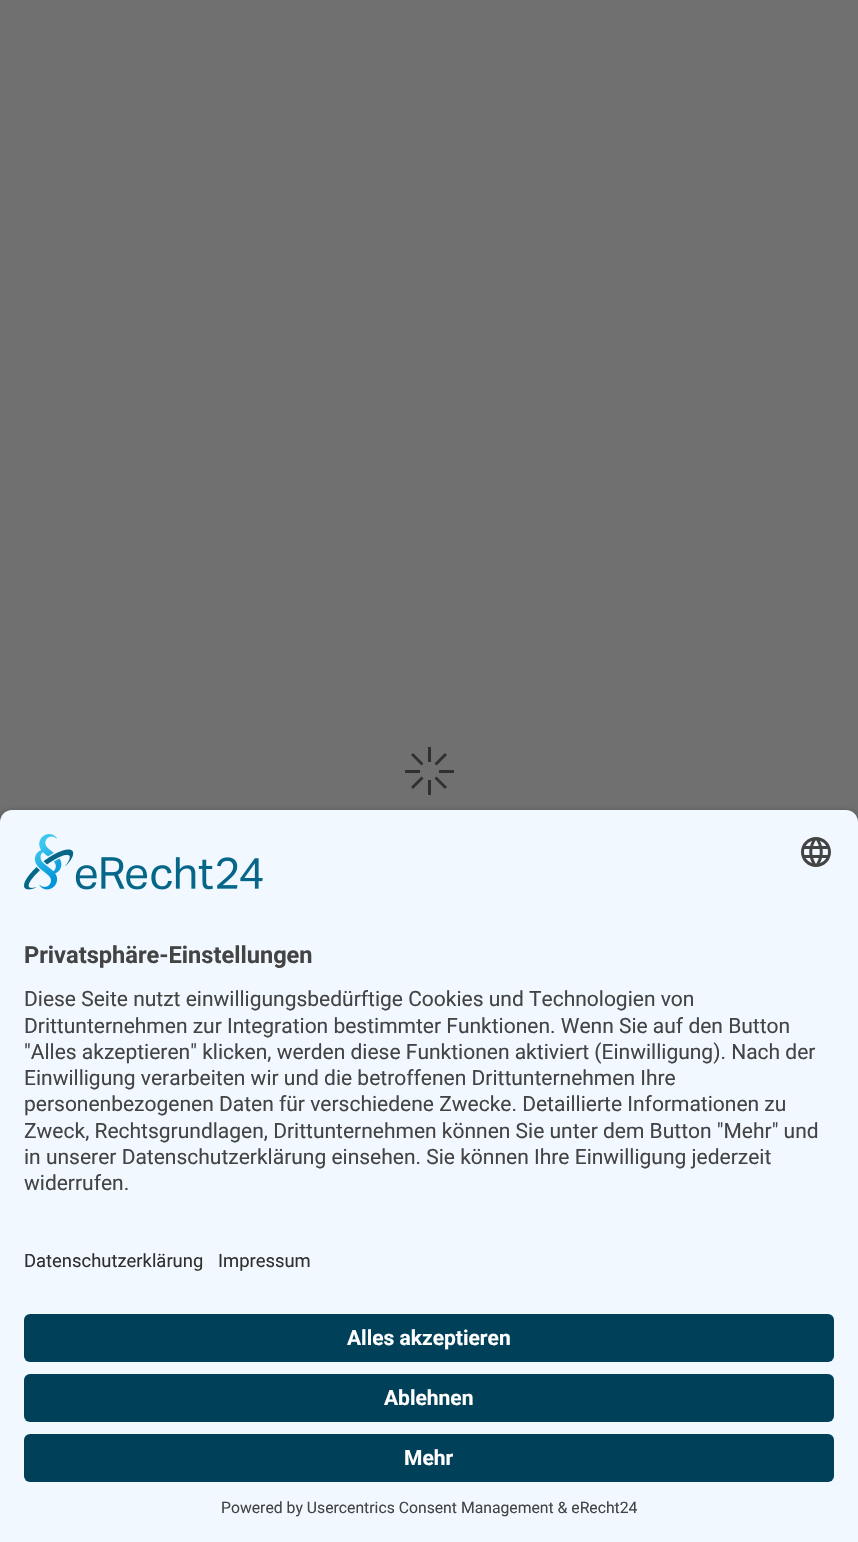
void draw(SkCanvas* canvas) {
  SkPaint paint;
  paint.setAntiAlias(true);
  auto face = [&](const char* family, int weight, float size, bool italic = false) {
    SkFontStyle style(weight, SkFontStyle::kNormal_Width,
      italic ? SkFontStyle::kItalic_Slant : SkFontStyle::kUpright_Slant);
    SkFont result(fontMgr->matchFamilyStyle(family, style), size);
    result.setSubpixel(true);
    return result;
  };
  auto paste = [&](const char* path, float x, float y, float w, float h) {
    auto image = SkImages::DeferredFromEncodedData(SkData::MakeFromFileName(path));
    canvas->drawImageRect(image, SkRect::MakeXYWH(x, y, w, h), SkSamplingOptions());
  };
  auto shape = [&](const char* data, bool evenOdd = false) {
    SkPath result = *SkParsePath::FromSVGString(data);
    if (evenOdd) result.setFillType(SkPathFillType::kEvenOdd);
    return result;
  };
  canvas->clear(0xff707070);
  paint.setColor(0xff303030);
  canvas->drawPath(shape("M411 755L413 753L423.5 763.5L421.5 765.5Z"), paint);
  canvas->drawRect(SkRect::MakeXYWH(428, 747, 3, 15), paint);
  canvas->drawPath(shape("M445 753L447 755L436.5 765.5L434.5 763.5Z"), paint);
  canvas->drawRect(SkRect::MakeXYWH(405, 770, 15, 3), paint);
  canvas->drawRect(SkRect::MakeXYWH(439, 770, 15, 3), paint);
  canvas->drawPath(shape("M413 789L411 787L421.5 776.5L423.5 778.5Z"), paint);
  canvas->drawRect(SkRect::MakeXYWH(428, 780, 3, 15), paint);
  canvas->drawPath(shape("M447 787L445 789L434.5 778.5L436.5 776.5Z"), paint);
  paint.setColor(0xcc000000);
  paint.setMaskFilter(SkMaskFilter::MakeBlur(kNormal_SkBlurStyle, 5));
  canvas->drawRoundRect(SkRect::MakeXYWH(0, 815, 858, 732), 12, 12, paint);
  paint.setMaskFilter(nullptr);
  paint.setColor(0xfff1f8ff);
  canvas->drawPath(shape("M12 810H846C852.5 810 858 815.5 858 822V1227H0V822C0 815.5 5.5 810 12 810Z"), paint);
  paste("img/1.png", 24, 834, 239, 56);
  paste("img/2.png", 801, 837, 30, 30);
  canvas->drawRect(SkRect::MakeXYWH(0, 1227, 858, 315), paint);
  paint.setColor(0xff004059);
  canvas->drawRoundRect(SkRect::MakeXYWH(24, 1314, 810, 48), 6, 6, paint);
  canvas->drawRoundRect(SkRect::MakeXYWH(24, 1374, 810, 48), 6, 6, paint);
  canvas->drawRoundRect(SkRect::MakeXYWH(24, 1434, 810, 48), 6, 6, paint);
  auto f0 = face("Roboto", 700, 23.6f);
  paint.setColor(0xff444444);
  canvas->drawString("Privatsphäre-Einstellungen", 24, 963, f0, paint);
  auto f1 = face("Roboto", 400, 21);
  {
    const struct { const char* s; float x, y; } items[] = {
      {"Diese Seite nutzt einwilligungsbedürftige Cookies und Technologien von", 24, 1006},
      {"Drittunternehmen zur Integration bestimmter Funktionen. Wenn Sie auf den Button", 24, 1033},
      {"\"Alles akzeptieren\" klicken, werden diese Funktionen aktiviert (Einwilligung). Nach der", 24, 1059},
      {"Einwilligung verarbeiten wir und die betroffenen Drittunternehmen Ihre", 24, 1085},
      {"personenbezogenen Daten für verschiedene Zwecke. Detaillierte Informationen zu", 24, 1111},
      {"Zweck, Rechtsgrundlagen, Drittunternehmen können Sie unter dem Button \"Mehr\" und", 24, 1138},
      {"in unserer Datenschutzerklärung einsehen. Sie können Ihre Einwilligung jederzeit", 24, 1164},
      {"widerrufen.", 24, 1190},
    };
    for (auto [s, x, y] : items) {
      canvas->drawString(s, x, y, f1, paint);
    }
  }
  auto f2 = face("Roboto", 400, 18.4f);
  paint.setColor(0xff303030);
  canvas->drawString("Datenschutzerklärung", 24, 1267, f2, paint);
  canvas->drawString("Impressum", 218, 1267, f2, paint);
  auto f3 = face("Roboto", 700, 21);
  paint.setColor(0xffffffff);
  {
    const struct { const char* s; float x, y; } items[] = {
      {"Alles akzeptieren", 347, 1345},
      {"Ablehnen", 384, 1405},
      {"Mehr", 404, 1465},
    };
    for (auto [s, x, y] : items) {
      canvas->drawString(s, x, y, f3, paint);
    }
  }
  auto f4 = face("Roboto", 400, 15.75f);
  paint.setColor(0xff444444);
  canvas->drawString("Powered by Usercentrics Consent Management & eRecht24", 221, 1513, f4, paint);
}
